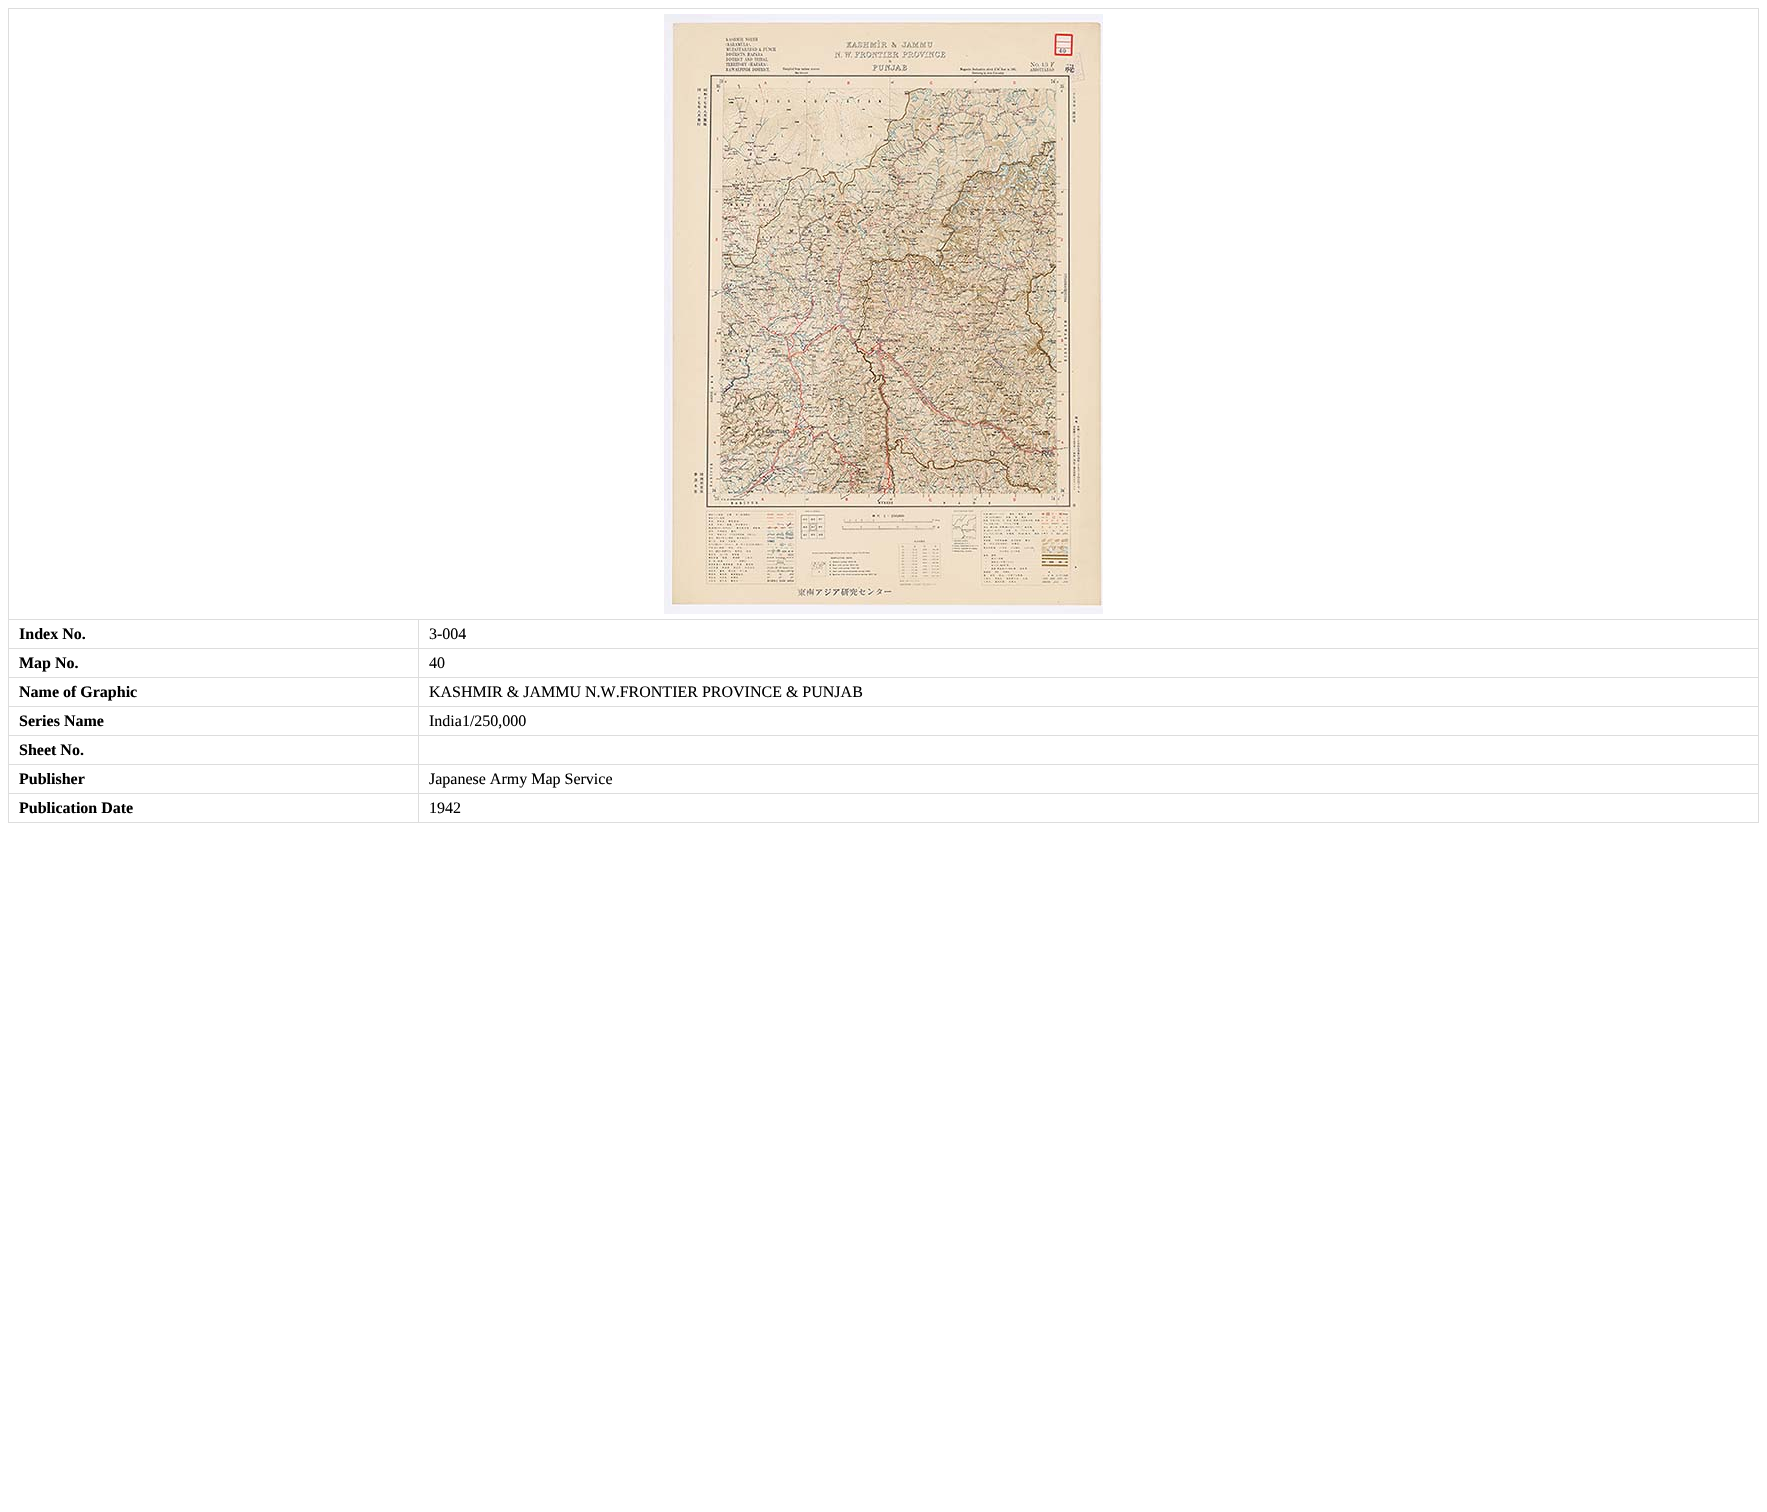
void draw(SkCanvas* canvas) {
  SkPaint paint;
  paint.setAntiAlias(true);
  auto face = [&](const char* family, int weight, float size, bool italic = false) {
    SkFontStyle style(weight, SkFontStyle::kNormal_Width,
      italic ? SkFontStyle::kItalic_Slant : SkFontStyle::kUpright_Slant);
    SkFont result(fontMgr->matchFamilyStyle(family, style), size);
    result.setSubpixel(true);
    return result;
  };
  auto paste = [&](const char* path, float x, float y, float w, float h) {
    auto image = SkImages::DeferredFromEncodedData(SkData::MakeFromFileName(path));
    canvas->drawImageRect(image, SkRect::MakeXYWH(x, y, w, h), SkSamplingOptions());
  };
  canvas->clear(0xffffffff);
  {
    const struct { float x, y, w, h; SkColor color; } items[] = {
      {8, 8, 1751, 1, 0xffdddddd},
      {418, 619, 1341, 1, 0xffdddddd},
      {418, 648, 1341, 1, 0xffdddddd},
      {418, 677, 1341, 1, 0xffdddddd},
      {418, 706, 1341, 1, 0xffdddddd},
      {418, 735, 1341, 1, 0xffdddddd},
      {418, 764, 1341, 1, 0xffdddddd},
      {418, 793, 1341, 1, 0xffdddddd},
      {1758, 793, 1, 30, 0xffdddddd},
      {1758, 764, 1, 30, 0xffdddddd},
      {1758, 735, 1, 30, 0xffdddddd},
      {1758, 706, 1, 30, 0xffdddddd},
      {1758, 677, 1, 30, 0xffdddddd},
      {1758, 648, 1, 30, 0xffdddddd},
      {1758, 619, 1, 30, 0xffdddddd},
      {1758, 8, 1, 612, 0xffdddddd},
      {418, 822, 1341, 1, 0xffdddddd},
      {418, 793, 1, 30, 0xffdddddd},
      {8, 793, 411, 1, 0xffdddddd},
      {418, 764, 1, 30, 0xffdddddd},
      {8, 764, 411, 1, 0xffdddddd},
      {418, 735, 1, 30, 0xffdddddd},
      {8, 735, 411, 1, 0xffdddddd},
      {418, 706, 1, 30, 0xffdddddd},
      {8, 706, 411, 1, 0xffdddddd},
      {418, 677, 1, 30, 0xffdddddd},
      {8, 677, 411, 1, 0xffdddddd},
      {418, 648, 1, 30, 0xffdddddd},
      {8, 648, 411, 1, 0xffdddddd},
      {418, 619, 1, 30, 0xffdddddd},
      {8, 619, 411, 1, 0xffdddddd},
      {8, 822, 411, 1, 0xffdddddd},
      {8, 793, 1, 30, 0xffdddddd},
      {8, 764, 1, 30, 0xffdddddd},
      {8, 735, 1, 30, 0xffdddddd},
      {8, 706, 1, 30, 0xffdddddd},
      {8, 677, 1, 30, 0xffdddddd},
      {8, 648, 1, 30, 0xffdddddd},
      {8, 619, 1, 30, 0xffdddddd},
      {8, 8, 1, 612, 0xffdddddd},
    };
    for (auto [x, y, w, h, color] : items) {
      paint.setColor(color);
      canvas->drawRect(SkRect::MakeXYWH(x, y, w, h), paint);
    }
  }
  paste("img/1.png", 664, 14, 439, 600);
  auto f0 = face("Liberation Serif", 700, 16);
  paint.setColor(0xff000000);
  canvas->drawString("Index No.", 19, 639, f0, paint);
  auto f1 = face("Liberation Serif", 400, 16);
  canvas->drawString("3-004", 429, 639, f1, paint);
  canvas->drawString("Map No.", 19, 668, f0, paint);
  canvas->drawString("40", 429, 668, f1, paint);
  canvas->drawString("Name of Graphic", 19, 697, f0, paint);
  canvas->drawString("KASHMIR & JAMMU N.W.FRONTIER PROVINCE & PUNJAB", 429, 697, f1, paint);
  canvas->drawString("Series Name", 19, 726, f0, paint);
  canvas->drawString("India1/250,000", 429, 726, f1, paint);
  canvas->drawString("Sheet No.", 19, 755, f0, paint);
  canvas->drawString("Publisher", 19, 784, f0, paint);
  canvas->drawString("Japanese Army Map Service", 429, 784, f1, paint);
  canvas->drawString("Publication Date", 19, 813, f0, paint);
  canvas->drawString("1942", 429, 813, f1, paint);
}
